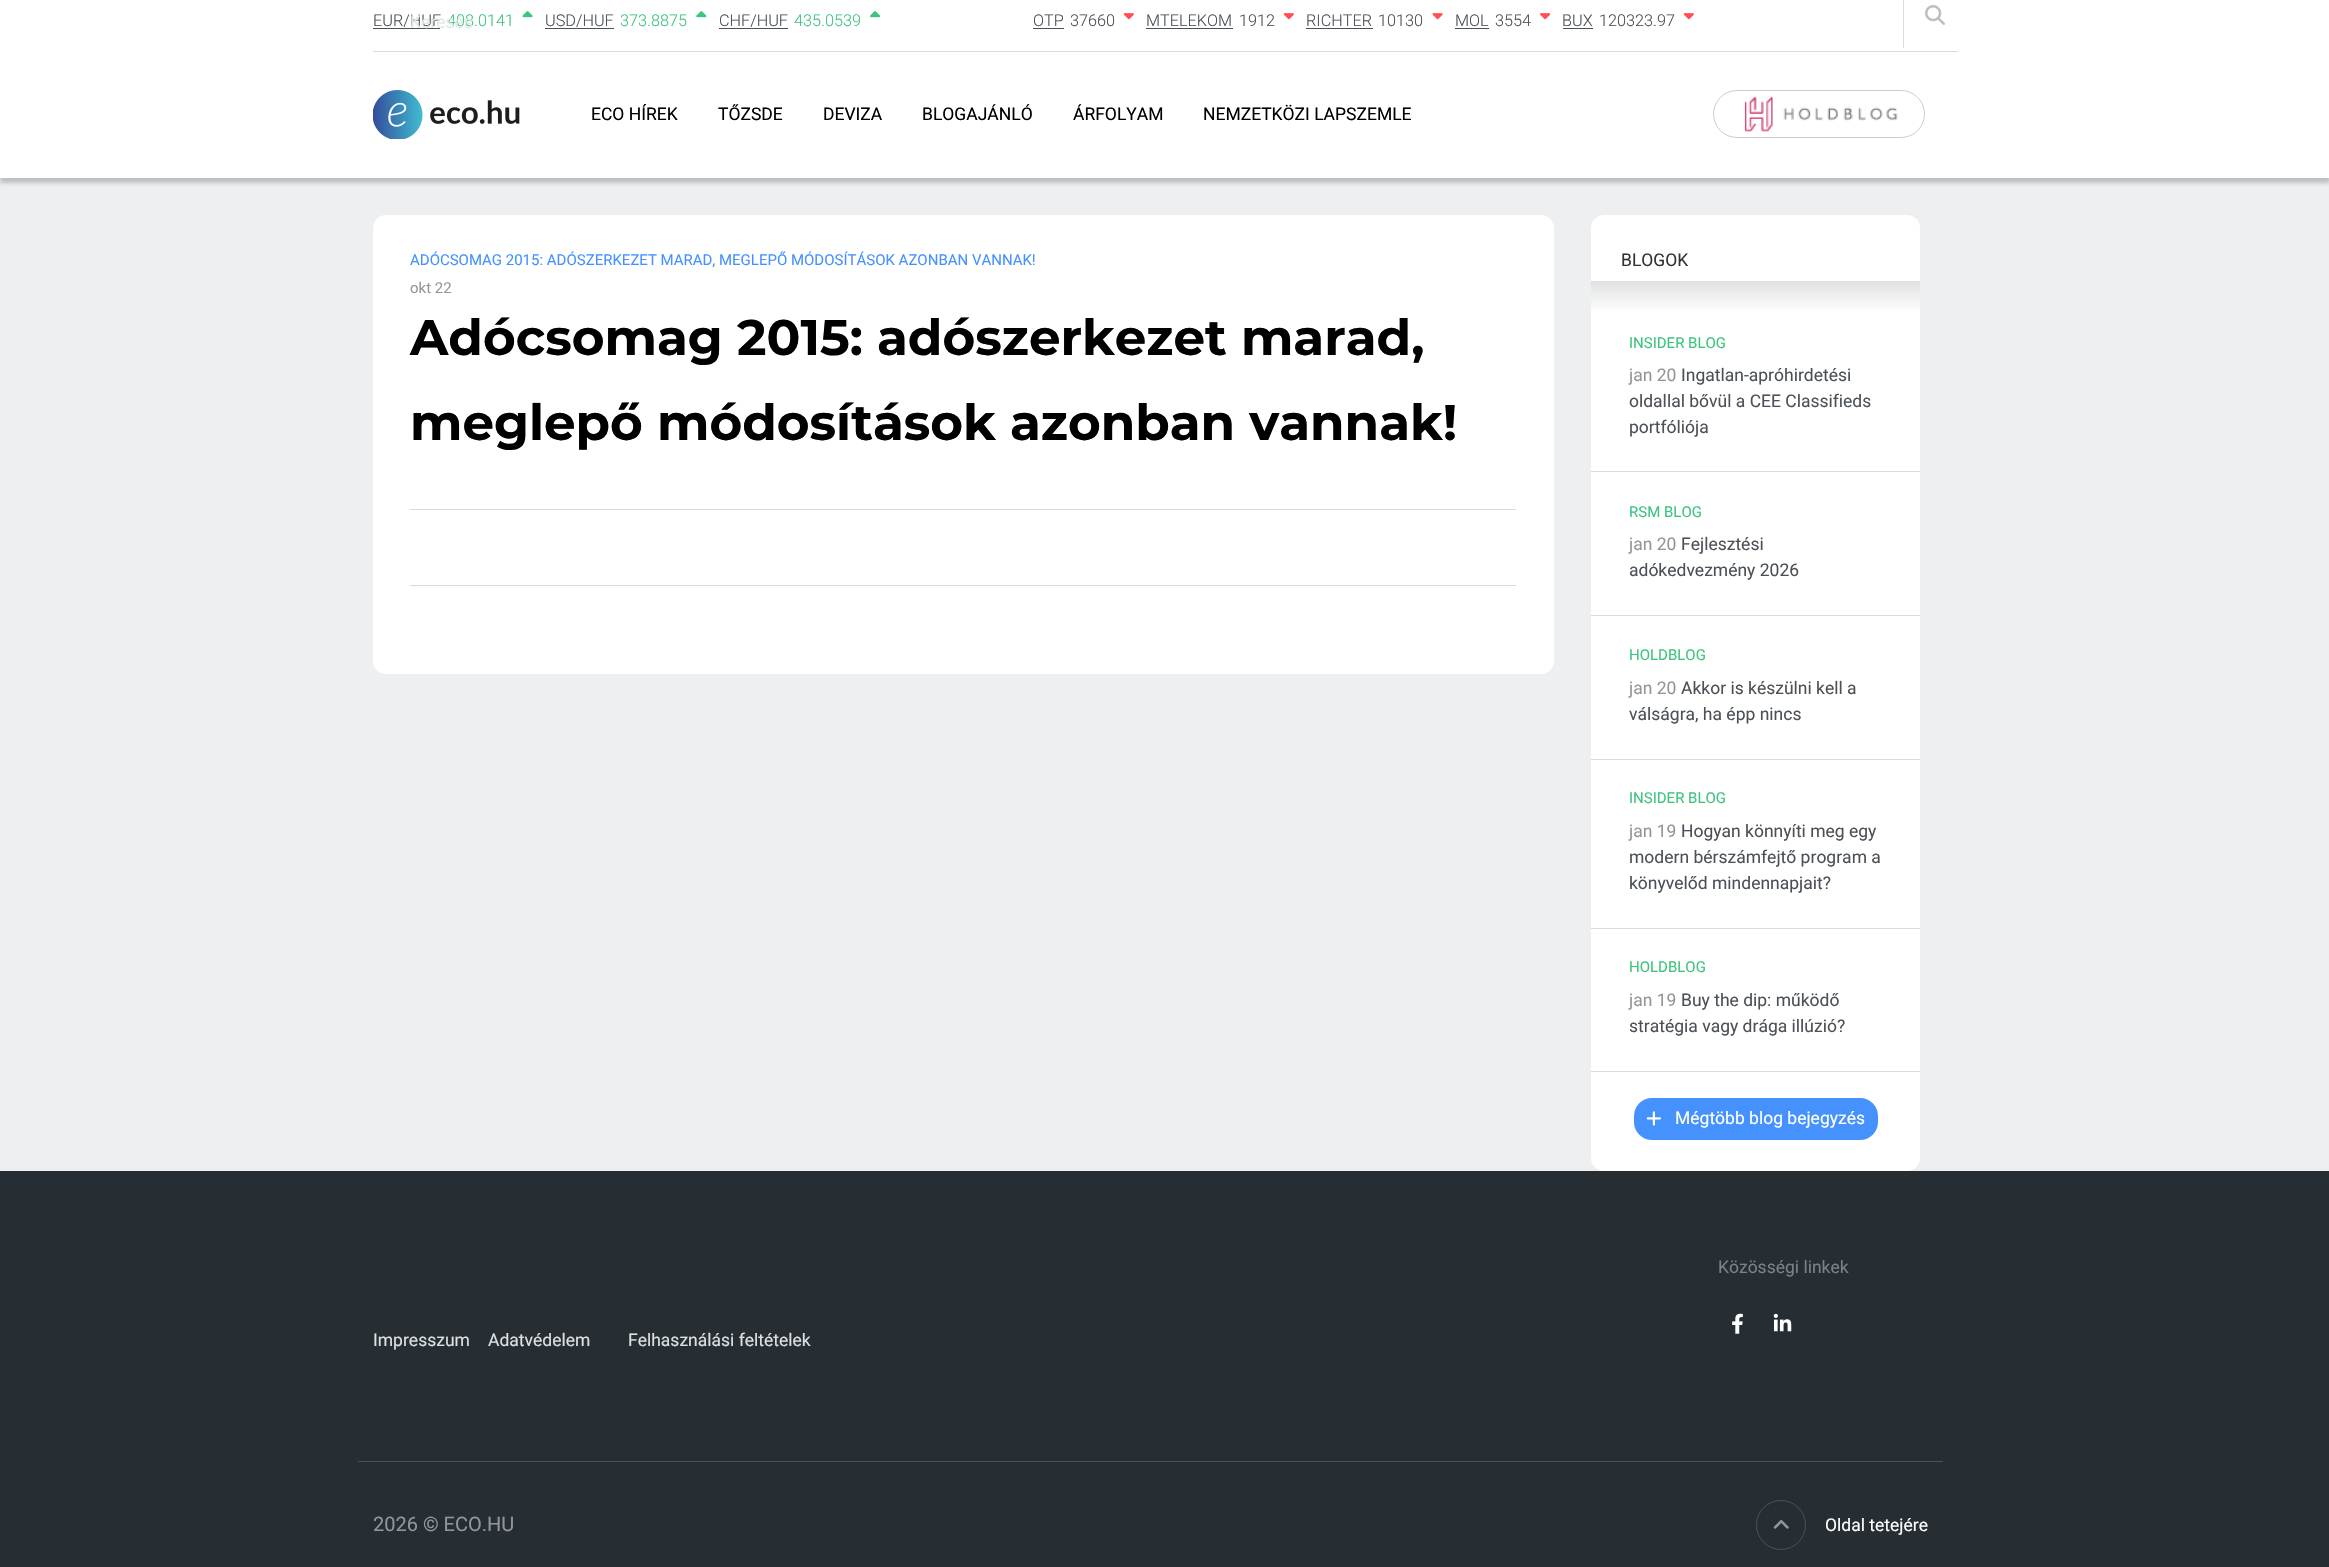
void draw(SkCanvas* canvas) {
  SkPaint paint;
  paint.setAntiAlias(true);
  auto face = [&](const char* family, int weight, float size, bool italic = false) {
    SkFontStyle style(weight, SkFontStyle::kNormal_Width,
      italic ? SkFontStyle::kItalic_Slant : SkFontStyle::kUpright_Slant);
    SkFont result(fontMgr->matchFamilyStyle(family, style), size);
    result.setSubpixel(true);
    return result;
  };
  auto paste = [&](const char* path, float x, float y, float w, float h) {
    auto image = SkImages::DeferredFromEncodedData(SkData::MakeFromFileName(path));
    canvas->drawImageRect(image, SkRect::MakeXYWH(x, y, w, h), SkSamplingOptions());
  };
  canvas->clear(0xffedeff0);
  paint.setColor(0x33000000);
  paint.setMaskFilter(SkMaskFilter::MakeBlur(kNormal_SkBlurStyle, 2));
  canvas->drawRect(SkRect::MakeXYWH(0, -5, 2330, 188), paint);
  paint.setMaskFilter(nullptr);
  {
    const struct { float x, y, w, h; SkColor color; } items[] = {
      {0, 0, 2329, 178, 0xffffffff},
      {373, 51, 1585, 1, 0xffd9dadb},
      {373, 28, 67, 1, 0xff4b5157},
    };
    for (auto [x, y, w, h, color] : items) {
      paint.setColor(color);
      canvas->drawRect(SkRect::MakeXYWH(x, y, w, h), paint);
    }
  }
  paste("img/1.png", 522, 11, 11, 7);
  canvas->drawRect(SkRect::MakeXYWH(545, 28, 69, 1), paint);
  paste("img/2.png", 696, 11, 11, 7);
  canvas->drawRect(SkRect::MakeXYWH(719, 28, 69, 1), paint);
  paste("img/3.png", 870, 11, 11, 7);
  paint.setColor(0xffd9dadb);
  canvas->drawRect(SkRect::MakeXYWH(1903, 0, 1, 48), paint);
  paste("img/4.png", 1925, 5, 20, 20);
  paint.setColor(0xff4b5157);
  canvas->drawRect(SkRect::MakeXYWH(1033, 28, 31, 1), paint);
  paste("img/5.png", 1123, 13, 11, 7);
  canvas->drawRect(SkRect::MakeXYWH(1146, 28, 87, 1), paint);
  paste("img/5.png", 1283, 13, 11, 7);
  canvas->drawRect(SkRect::MakeXYWH(1306, 28, 67, 1), paint);
  paste("img/6.png", 1432, 13, 11, 7);
  canvas->drawRect(SkRect::MakeXYWH(1455, 28, 34, 1), paint);
  paste("img/7.png", 1540, 13, 11, 7);
  canvas->drawRect(SkRect::MakeXYWH(1563, 28, 30, 1), paint);
  paste("img/5.png", 1683, 13, 11, 7);
  paste("img/8.png", 373, 90, 147, 49);
  paint.setStroke(true);
  paint.setStrokeWidth(1);
  paint.setColor(0xffcccccc);
  canvas->drawRoundRect(SkRect::MakeXYWH(1713.5f, 90.5f, 211, 47), 23.5f, 23.5f, paint);
  paste("img/9.png", 1744, 96, 154, 36);
  paint.setStroke(false);
  paint.setColor(0xffffffff);
  canvas->drawRoundRect(SkRect::MakeXYWH(373, 215, 1181, 459), 13, 13, paint);
  paint.setColor(0xffd9dadb);
  canvas->drawRect(SkRect::MakeXYWH(410, 509, 1106, 1), paint);
  canvas->drawRect(SkRect::MakeXYWH(410, 585, 1106, 1), paint);
  paint.setColor(0xffffffff);
  canvas->drawRoundRect(SkRect::MakeXYWH(1591, 215, 329, 956), 13, 13, paint);
  {
    const SkColor colors[] = {0xffbec0c2, 0xffffffff};
    const float stops[] = {0, 1};
    const SkPoint ends[] = {{1756, 246}, {1756, 313}};
    paint.setShader(SkGradientShader::MakeLinear(ends, colors, stops, 2, SkTileMode::kClamp));
    paint.setAlpha(255);
  }
  canvas->drawRect(SkRect::MakeXYWH(1591, 281, 329, 29), paint);
  paint.setShader(nullptr);
  {
    const struct { float x, y, w, h; SkColor color; } items[] = {
      {1591, 471, 329, 1, 0xffd9dadb},
      {1591, 615, 329, 1, 0xffd9dadb},
      {1591, 759, 329, 1, 0xffd9dadb},
      {1591, 928, 329, 1, 0xffd9dadb},
      {1591, 1071, 329, 1, 0xffd9dadb},
    };
    for (auto [x, y, w, h, color] : items) {
      paint.setColor(color);
      canvas->drawRect(SkRect::MakeXYWH(x, y, w, h), paint);
    }
  }
  paint.setColor(0xff4592ff);
  canvas->drawRoundRect(SkRect::MakeXYWH(1634, 1098, 244, 42), 18, 18, paint);
  paste("img/10.png", 1646, 1111, 15, 15);
  paint.setColor(0xff262d33);
  canvas->drawRect(SkRect::MakeXYWH(0, 1171, 2329, 396), paint);
  paste("img/11.png", 1732, 1313, 11, 21);
  paste("img/12.png", 1773, 1313, 19, 19);
  paint.setColor(0xff4b5157);
  canvas->drawRect(SkRect::MakeXYWH(358, 1461, 1585, 1), paint);
  paint.setStroke(true);
  canvas->drawCircle(1781, 1525, 24.5f, paint);
  paste("img/13.png", 1773, 1520, 16, 9);
  auto f0 = face("Roboto", 300, 16.25f);
  paint.setStroke(false);
  canvas->drawString("EUR/HUF", 373, 26, f0, paint);
  paint.setColor(0xff3dc47e);
  canvas->drawString("408.0141", 447, 26, f0, paint);
  paint.setColor(0xff4b5157);
  canvas->drawString("USD/HUF", 545, 26, f0, paint);
  paint.setColor(0xff3dc47e);
  canvas->drawString("373.8875", 620, 26, f0, paint);
  paint.setColor(0xff4b5157);
  canvas->drawString("CHF/HUF", 719, 26, f0, paint);
  paint.setColor(0xff3dc47e);
  canvas->drawString("435.0539", 794, 26, f0, paint);
  auto f1 = face("Roboto", 400, 17.5f);
  paint.setColor(0xffdfeae5);
  canvas->drawString("Keresés", 410, 28, f1, paint);
  paint.setColor(0xff4b5157);
  {
    const struct { const char* s; float x, y; } items[] = {
      {"OTP", 1033, 26},
      {"37660", 1070, 26},
      {"MTELEKOM", 1146, 26},
      {"1912", 1239, 26},
      {"RICHTER", 1306, 26},
      {"10130", 1378, 26},
      {"MOL", 1455, 26},
      {"3554", 1495, 26},
      {"BUX", 1562, 26},
      {"120323.97", 1599, 26},
    };
    for (auto [s, x, y] : items) {
      canvas->drawString(s, x, y, f0, paint);
    }
  }
  paint.setColor(0xff000000);
  {
    const struct { const char* s; float x, y; } items[] = {
      {"ECO HÍREK", 591, 120},
      {"TŐZSDE", 718, 120},
      {"DEVIZA", 823, 120},
      {"BLOGAJÁNLÓ", 922, 120},
      {"ÁRFOLYAM", 1073, 120},
      {"NEMZETKÖZI LAPSZEMLE", 1203, 120},
    };
    for (auto [s, x, y] : items) {
      canvas->drawString(s, x, y, f1, paint);
    }
  }
  auto f2 = face("Roboto", 400, 15);
  paint.setColor(0xff4592ff);
  canvas->drawString("ADÓCSOMAG 2015: ADÓSZERKEZET MARAD, MEGLEPŐ MÓDOSÍTÁSOK AZONBAN VANNAK!", 410, 265, f2, paint);
  paint.setColor(0xff939699);
  canvas->drawString("okt 22", 410, 293, f2, paint);
  auto f3 = face("Montserrat", 700, 50);
  paint.setColor(0xff000000);
  canvas->drawString("Adócsomag 2015: adószerkezet marad,", 410, 355, f3, paint);
  canvas->drawString("meglepő módosítások azonban vannak!", 410, 440, f3, paint);
  paint.setColor(0xff333333);
  canvas->drawString("BLOGOK", 1621, 266, f1, paint);
  paint.setColor(0xff3dc47e);
  canvas->drawString("INSIDER BLOG", 1629, 348, f2, paint);
  paint.setColor(0xff939699);
  canvas->drawString("jan 20", 1629, 381, f1, paint);
  paint.setColor(0xff4b5157);
  {
    const struct { const char* s; float x, y; } items[] = {
      {"Ingatlan-apróhirdetési", 1681, 381},
      {"oldallal bővül a CEE Classifieds", 1629, 407},
      {"portfóliója", 1629, 433},
    };
    for (auto [s, x, y] : items) {
      canvas->drawString(s, x, y, f1, paint);
    }
  }
  paint.setColor(0xff3dc47e);
  canvas->drawString("RSM BLOG", 1629, 517, f2, paint);
  paint.setColor(0xff939699);
  canvas->drawString("jan 20", 1629, 550, f1, paint);
  paint.setColor(0xff4b5157);
  canvas->drawString("Fejlesztési", 1681, 550, f1, paint);
  canvas->drawString("adókedvezmény 2026", 1629, 576, f1, paint);
  paint.setColor(0xff3dc47e);
  canvas->drawString("HOLDBLOG", 1629, 660, f2, paint);
  paint.setColor(0xff939699);
  canvas->drawString("jan 20", 1629, 694, f1, paint);
  paint.setColor(0xff4b5157);
  canvas->drawString("Akkor is készülni kell a", 1681, 694, f1, paint);
  canvas->drawString("válságra, ha épp nincs", 1629, 720, f1, paint);
  paint.setColor(0xff3dc47e);
  canvas->drawString("INSIDER BLOG", 1629, 803, f2, paint);
  paint.setColor(0xff939699);
  canvas->drawString("jan 19", 1629, 837, f1, paint);
  paint.setColor(0xff4b5157);
  {
    const struct { const char* s; float x, y; } items[] = {
      {"Hogyan könnyíti meg egy", 1681, 837},
      {"modern bérszámfejtő program a", 1629, 863},
      {"könyvelőd mindennapjait?", 1629, 889},
    };
    for (auto [s, x, y] : items) {
      canvas->drawString(s, x, y, f1, paint);
    }
  }
  paint.setColor(0xff3dc47e);
  canvas->drawString("HOLDBLOG", 1629, 972, f2, paint);
  paint.setColor(0xff939699);
  canvas->drawString("jan 19", 1629, 1006, f1, paint);
  paint.setColor(0xff4b5157);
  canvas->drawString("Buy the dip: működő", 1681, 1006, f1, paint);
  canvas->drawString("stratégia vagy drága illúzió?", 1629, 1032, f1, paint);
  paint.setColor(0xffffffff);
  canvas->drawString("Mégtöbb blog bejegyzés", 1675, 1124, f1, paint);
  paint.setColor(0xff7d8185);
  canvas->drawString("Közösségi linkek", 1718, 1273, f1, paint);
  paint.setColor(0xffdee0e0);
  {
    const struct { const char* s; float x, y; } items[] = {
      {"Impresszum", 373, 1346},
      {"Adatvédelem", 488, 1346},
      {"Felhasználási feltételek", 628, 1346},
    };
    for (auto [s, x, y] : items) {
      canvas->drawString(s, x, y, f1, paint);
    }
  }
  auto f4 = face("Roboto", 400, 20);
  paint.setColor(0xff939699);
  canvas->drawString("2026 © ECO.HU", 373, 1531, f4, paint);
  paint.setColor(0xffffffff);
  canvas->drawString("Oldal tetejére", 1825, 1531, f1, paint);
}
